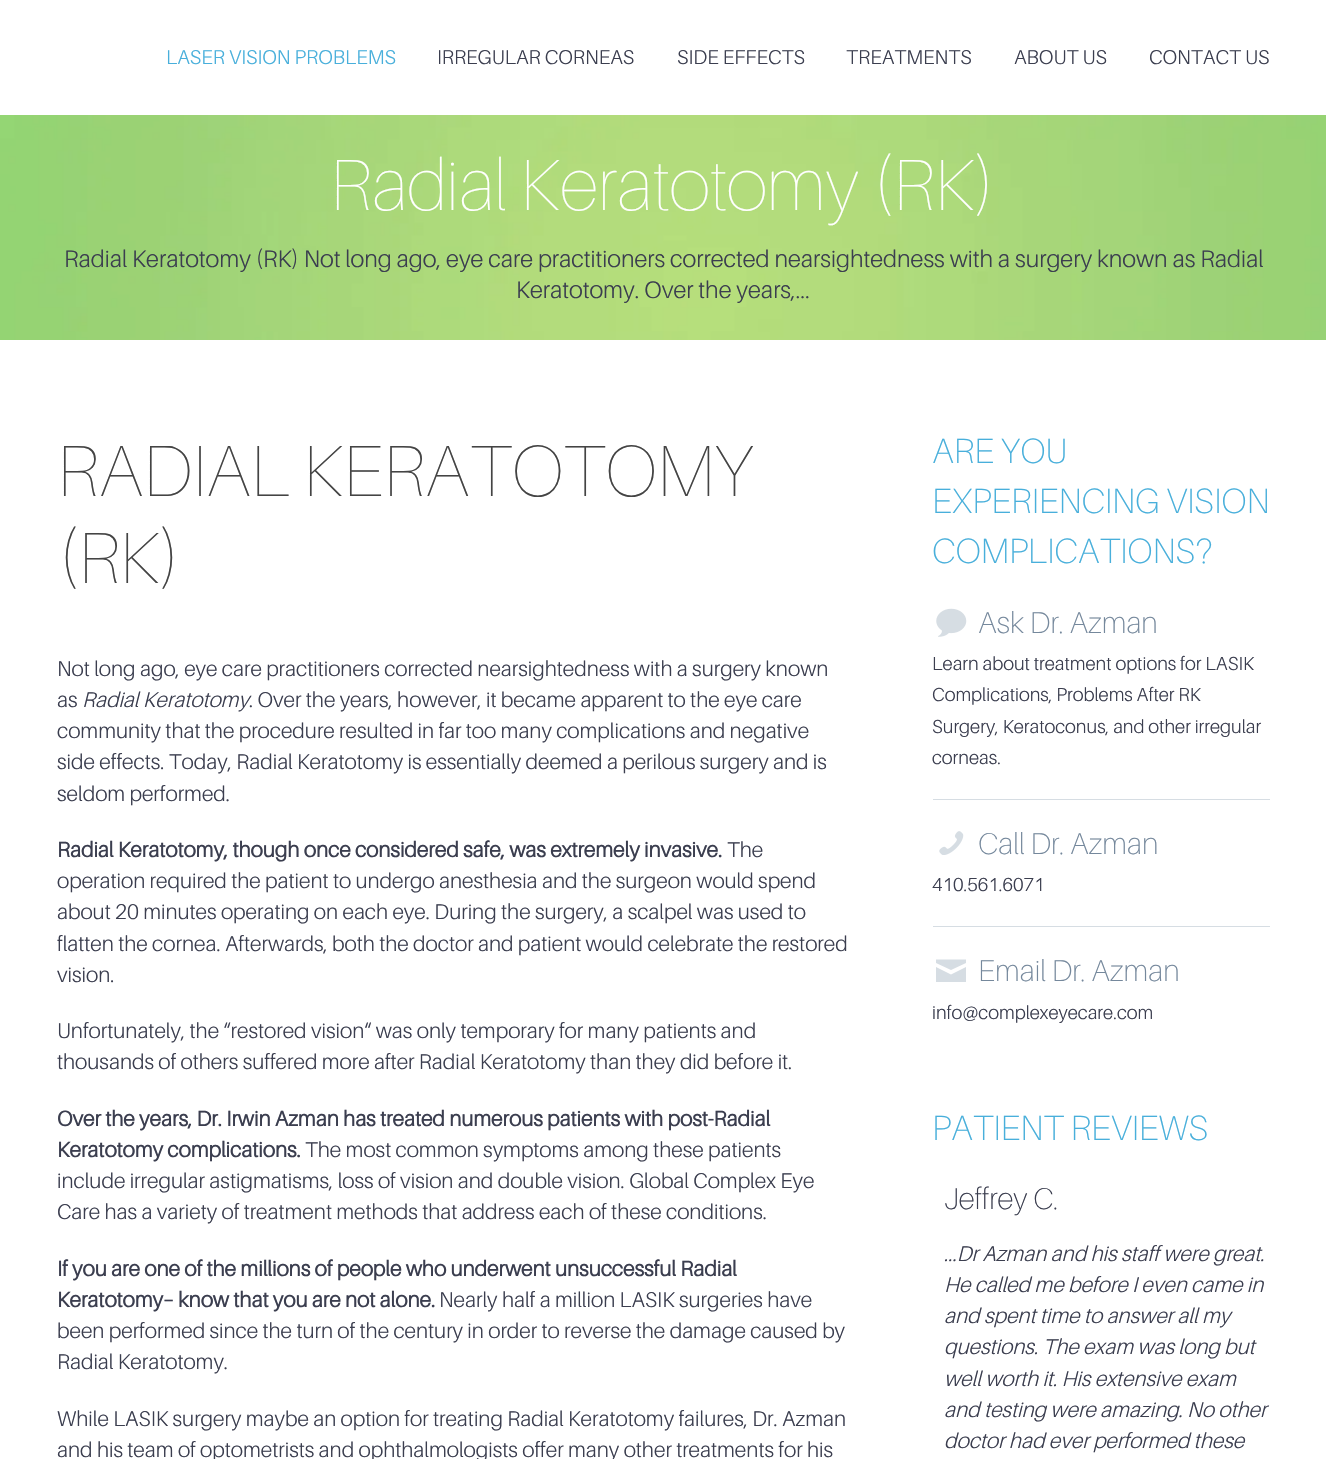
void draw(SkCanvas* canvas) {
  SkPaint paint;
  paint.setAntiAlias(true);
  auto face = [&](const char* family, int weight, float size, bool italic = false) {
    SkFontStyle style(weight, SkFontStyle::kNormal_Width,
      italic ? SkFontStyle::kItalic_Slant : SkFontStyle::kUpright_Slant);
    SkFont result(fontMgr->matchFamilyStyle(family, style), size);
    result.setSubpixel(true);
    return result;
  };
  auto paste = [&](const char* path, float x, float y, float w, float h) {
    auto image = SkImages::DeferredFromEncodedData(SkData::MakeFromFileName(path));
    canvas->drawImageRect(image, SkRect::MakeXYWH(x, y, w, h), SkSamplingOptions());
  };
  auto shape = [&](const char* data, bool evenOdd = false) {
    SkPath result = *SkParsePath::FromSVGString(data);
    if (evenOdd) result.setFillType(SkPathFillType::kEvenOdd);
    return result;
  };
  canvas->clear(0xffffffff);
  paste("img/1.png", 0, 115, 1326, 225);
  paste("img/2.png", 936, 608, 31, 29);
  paint.setColor(0xffd6dde3);
  canvas->drawRect(SkRect::MakeXYWH(933, 799, 337, 1), paint);
  paste("img/3.png", 939, 831, 25, 24);
  canvas->drawRect(SkRect::MakeXYWH(933, 926, 337, 1), paint);
  canvas->drawPath(shape("M951 970L966 963V959.5H936V963ZM951 974.5L936 967V982H966V967Z"), paint);
  auto f0 = face("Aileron", 300, 20);
  paint.setColor(0xff48afdb);
  canvas->drawString("LASER VISION PROBLEMS", 166, 64, f0, paint);
  paint.setColor(0xff3b3e4f);
  {
    const struct { const char* s; float x, y; } items[] = {
      {"IRREGULAR CORNEAS", 437, 64},
      {"SIDE EFFECTS", 677, 64},
      {"TREATMENTS", 846, 64},
      {"ABOUT US", 1014, 64},
      {"CONTACT US", 1149, 64},
    };
    for (auto [s, x, y] : items) {
      canvas->drawString(s, x, y, f0, paint);
    }
  }
  auto f1 = face("Aileron", 200, 72.5f);
  paint.setColor(0xffffffff);
  canvas->drawString("Radial Keratotomy (RK)", 330, 210, f1, paint);
  auto f2 = face("Aileron", 300, 23.8f);
  paint.setColor(0xff3b3e4f);
  canvas->drawString("Radial Keratotomy (RK) Not long ago, eye care practitioners corrected nearsightedness with a surgery known as Radial", 64, 267, f2, paint);
  canvas->drawString("Keratotomy. Over the years,...", 516, 298, f2, paint);
  paint.setColor(0xff444444);
  canvas->drawString("RADIAL KERATOTOMY", 57, 496, f1, paint);
  canvas->drawString("(RK)", 57, 583, f1, paint);
  auto f3 = face("Aileron", 300, 21.25f);
  paint.setColor(0xff3b3e4f);
  canvas->drawString("Not long ago, eye care practitioners corrected nearsightedness with a surgery known", 57, 676, f3, paint);
  canvas->drawString("as", 57, 707, f3, paint);
  auto f4 = face("Aileron", 300, 21.25f, true);
  canvas->drawString("Radial Keratotomy", 82, 707, f4, paint);
  {
    const struct { const char* s; float x, y; } items[] = {
      {". Over the years, however, it became apparent to the eye care", 249, 707},
      {"community that the procedure resulted in far too many complications and negative", 57, 738},
      {"side effects. Today, Radial Keratotomy is essentially deemed a perilous surgery and is", 57, 769},
      {"seldom performed.", 57, 801},
    };
    for (auto [s, x, y] : items) {
      canvas->drawString(s, x, y, f3, paint);
    }
  }
  auto f5 = face("Aileron", 700, 21.25f);
  canvas->drawString("Radial Keratotomy, though once considered safe, was extremely invasive.", 57, 857, f5, paint);
  {
    const struct { const char* s; float x, y; } items[] = {
      {"The", 727, 857},
      {"operation required the patient to undergo anesthesia and the surgeon would spend", 57, 888},
      {"about 20 minutes operating on each eye. During the surgery, a scalpel was used to", 57, 919},
      {"flatten the cornea. Afterwards, both the doctor and patient would celebrate the restored", 57, 951},
      {"vision.", 57, 982},
      {"Unfortunately, the “restored vision“ was only temporary for many patients and", 57, 1038},
      {"thousands of others suffered more after Radial Keratotomy than they did before it.", 57, 1069},
    };
    for (auto [s, x, y] : items) {
      canvas->drawString(s, x, y, f3, paint);
    }
  }
  canvas->drawString("Over the years, Dr. Irwin Azman has treated numerous patients with post-Radial", 57, 1126, f5, paint);
  canvas->drawString("Keratotomy complications.", 57, 1157, f5, paint);
  {
    const struct { const char* s; float x, y; } items[] = {
      {"The most common symptoms among these patients", 305, 1157},
      {"include irregular astigmatisms, loss of vision and double vision. Global Complex Eye", 57, 1188},
      {"Care has a variety of treatment methods that address each of these conditions.", 57, 1219},
    };
    for (auto [s, x, y] : items) {
      canvas->drawString(s, x, y, f3, paint);
    }
  }
  canvas->drawString("If you are one of the millions of people who underwent unsuccessful Radial", 57, 1276, f5, paint);
  canvas->drawString("Keratotomy– know that you are not alone.", 57, 1307, f5, paint);
  {
    const struct { const char* s; float x, y; } items[] = {
      {"Nearly half a million LASIK surgeries have", 439, 1307},
      {"been performed since the turn of the century in order to reverse the damage caused by", 57, 1338},
      {"Radial Keratotomy.", 57, 1369},
      {"While LASIK surgery maybe an option for treating Radial Keratotomy failures, Dr. Azman", 57, 1426},
      {"and his team of optometrists and ophthalmologists offer many other treatments for his", 57, 1457},
    };
    for (auto [s, x, y] : items) {
      canvas->drawString(s, x, y, f3, paint);
    }
  }
  auto f6 = face("Aileron", 100, 35);
  paint.setColor(0xff48afdb);
  {
    const struct { const char* s; float x, y; } items[] = {
      {"ARE YOU", 932, 463},
      {"EXPERIENCING VISION", 932, 513},
      {"COMPLICATIONS?", 932, 563},
    };
    for (auto [s, x, y] : items) {
      canvas->drawString(s, x, y, f6, paint);
    }
  }
  auto f7 = face("Aileron", 100, 30);
  paint.setColor(0xff75889c);
  canvas->drawString("Ask Dr. Azman", 978, 633, f7, paint);
  auto f8 = face("Aileron", 300, 18.75f);
  paint.setColor(0xff3b3e4f);
  {
    const struct { const char* s; float x, y; } items[] = {
      {"Learn about treatment options for LASIK", 932, 670},
      {"Complications, Problems After RK", 932, 701},
      {"Surgery, Keratoconus, and other irregular", 932, 733},
      {"corneas.", 932, 764},
    };
    for (auto [s, x, y] : items) {
      canvas->drawString(s, x, y, f8, paint);
    }
  }
  paint.setColor(0xff75889c);
  canvas->drawString("Call Dr. Azman", 978, 854, f7, paint);
  paint.setColor(0xff3b3e4f);
  canvas->drawString("410.561.6071", 932, 891, f8, paint);
  paint.setColor(0xff75889c);
  canvas->drawString("Email Dr. Azman", 978, 981, f7, paint);
  paint.setColor(0xff3b3e4f);
  canvas->drawString("info@complexeyecare.com", 932, 1019, f8, paint);
  paint.setColor(0xff48afdb);
  canvas->drawString("PATIENT REVIEWS", 932, 1140, f6, paint);
  paint.setColor(0xff3b3e4f);
  canvas->drawString("Jeffrey C.", 944, 1209, f7, paint);
  {
    const struct { const char* s; float x, y; } items[] = {
      {"...Dr Azman and his staff were great.", 944, 1261},
      {"He called me before I even came in", 944, 1292},
      {"and spent time to answer all my", 944, 1323},
      {"questions. The exam was long but", 944, 1354},
      {"well worth it. His extensive exam", 944, 1386},
      {"and testing were amazing. No other", 944, 1417},
      {"doctor had ever performed these", 944, 1448},
    };
    for (auto [s, x, y] : items) {
      canvas->drawString(s, x, y, f4, paint);
    }
  }
}
